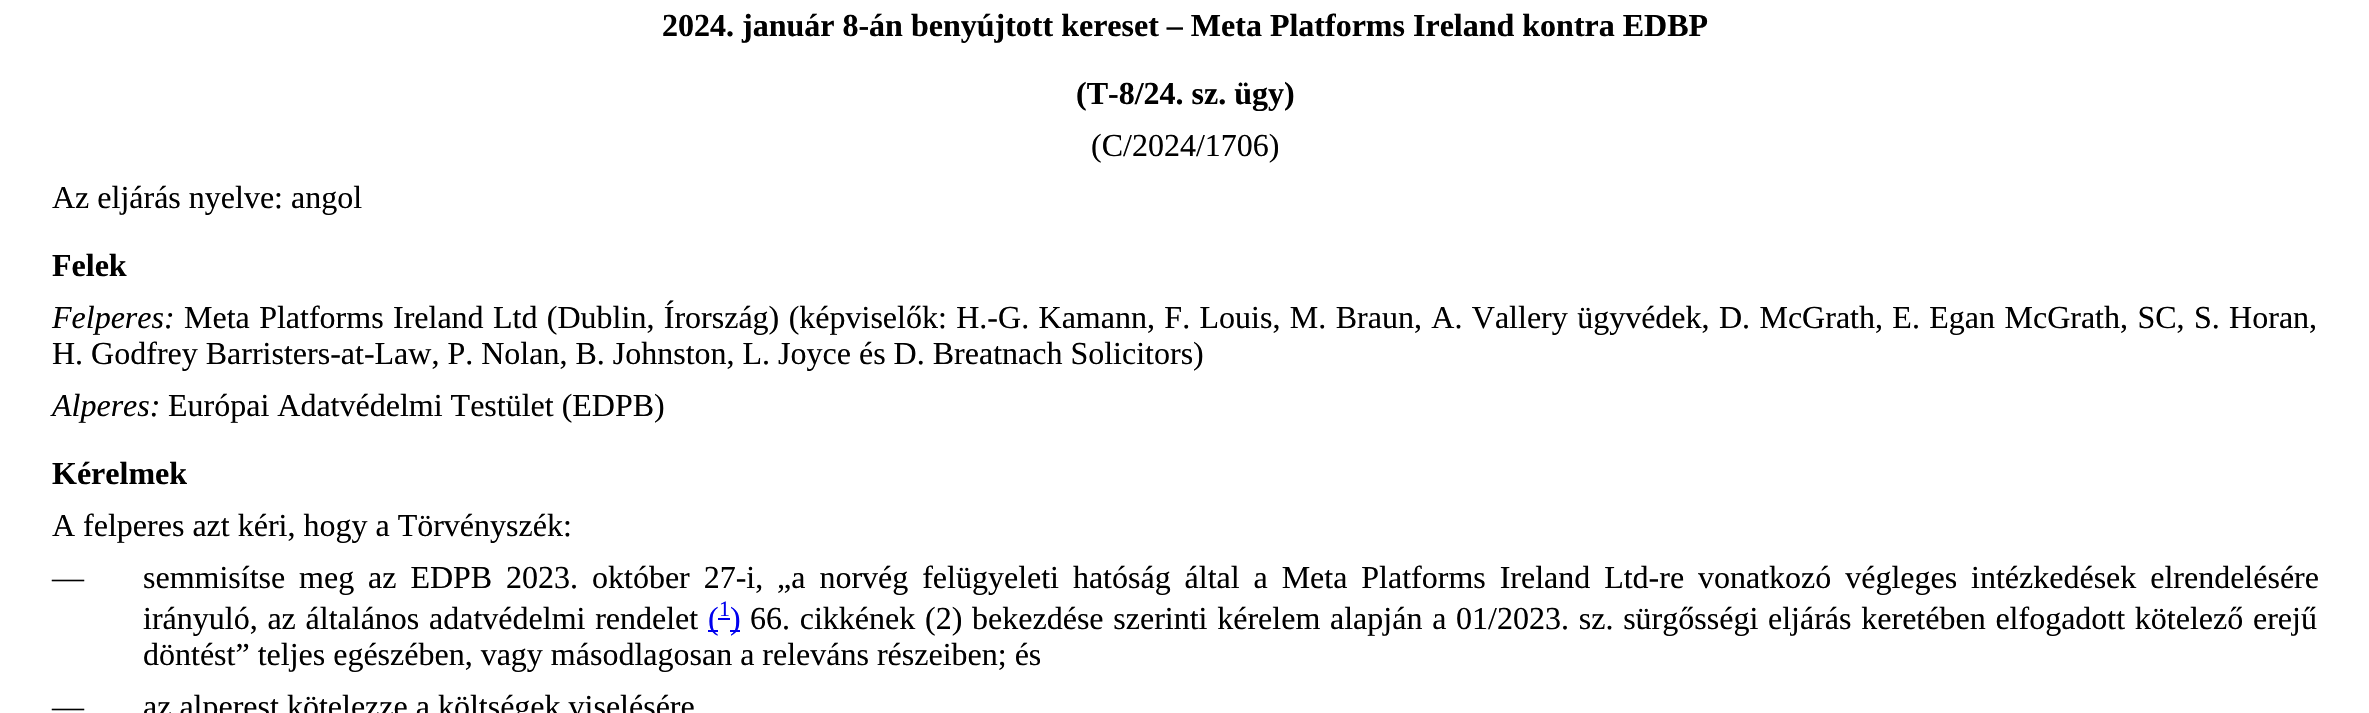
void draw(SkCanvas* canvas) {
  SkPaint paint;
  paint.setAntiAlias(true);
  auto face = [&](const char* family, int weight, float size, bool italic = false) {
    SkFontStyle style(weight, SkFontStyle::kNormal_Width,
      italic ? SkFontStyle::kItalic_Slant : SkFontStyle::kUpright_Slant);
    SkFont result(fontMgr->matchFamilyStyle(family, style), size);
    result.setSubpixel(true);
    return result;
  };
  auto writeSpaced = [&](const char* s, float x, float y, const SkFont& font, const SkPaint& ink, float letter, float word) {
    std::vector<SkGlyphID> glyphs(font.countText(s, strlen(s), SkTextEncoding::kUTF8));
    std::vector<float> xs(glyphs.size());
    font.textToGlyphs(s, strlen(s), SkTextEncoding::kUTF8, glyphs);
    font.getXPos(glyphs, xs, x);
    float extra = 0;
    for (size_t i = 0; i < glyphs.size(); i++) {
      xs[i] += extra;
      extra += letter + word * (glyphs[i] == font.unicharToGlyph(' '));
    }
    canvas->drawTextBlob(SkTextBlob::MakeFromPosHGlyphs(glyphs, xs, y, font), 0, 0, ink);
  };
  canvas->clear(0xffffffff);
  {
    const struct { float x, y, w, h; SkColor color; } items[] = {
      {708, 630, 10, 2, 0xff0000ee},
      {718, 618, 12, 2, 0xff0000ee},
      {730, 630, 10, 2, 0xff0000ee},
    };
    for (auto [x, y, w, h, color] : items) {
      paint.setColor(color);
      canvas->drawRect(SkRect::MakeXYWH(x, y, w, h), paint);
    }
  }
  auto f0 = face("Liberation Serif", 700, 32);
  paint.setColor(0xff000000);
  canvas->drawString("2024. január 8-án benyújtott kereset – Meta Platforms Ireland kontra EDBP", 662, 36, f0, paint);
  canvas->drawString("(T-8/24. sz. ügy)", 1076, 104, f0, paint);
  auto f1 = face("Liberation Serif", 400, 32);
  canvas->drawString("(C/2024/1706)", 1091, 156, f1, paint);
  canvas->drawString("Az eljárás nyelve: angol", 52, 208, f1, paint);
  canvas->drawString("Felek", 52, 276, f0, paint);
  auto f2 = face("Liberation Serif", 400, 32, true);
  canvas->drawString("Felperes:", 52, 328, f2, paint);
  writeSpaced("Meta Platforms Ireland Ltd (Dublin, Írország) (képviselők: H.-G. Kamann, F. Louis, M. Braun, A. Vallery ügyvédek, D. McGrath, E. Egan McGrath, SC, S. Horan,", 184, 328, f1, paint, 0, 1.4f);
  canvas->drawString("H. Godfrey Barristers-at-Law, P. Nolan, B. Johnston, L. Joyce és D. Breatnach Solicitors)", 52, 364, f1, paint);
  canvas->drawString("Alperes:", 52, 416, f2, paint);
  canvas->drawString("Európai Adatvédelmi Testület (EDPB)", 168, 416, f1, paint);
  canvas->drawString("Kérelmek", 52, 484, f0, paint);
  canvas->drawString("A felperes azt kéri, hogy a Törvényszék:", 52, 536, f1, paint);
  canvas->drawString("—", 52, 588, f1, paint);
  writeSpaced("semmisítse meg az EDPB 2023. október 27-i, „a norvég felügyeleti hatóság által a Meta Platforms Ireland Ltd-re vonatkozó végleges intézkedések elrendelésére", 143, 588, f1, paint, 0, 5.9f);
  writeSpaced("irányuló, az általános adatvédelmi rendelet", 143, 629, f1, paint, 0, 1.75f);
  paint.setColor(0xff0000ee);
  canvas->drawString("(", 708, 629, f1, paint);
  auto f3 = face("Liberation Serif", 400, 22);
  canvas->drawString("1", 719, 616, f3, paint);
  canvas->drawString(")", 730, 629, f1, paint);
  paint.setColor(0xff000000);
  writeSpaced("66. cikkének (2) bekezdése szerinti kérelem alapján a 01/2023. sz. sürgősségi eljárás keretében elfogadott kötelező erejű", 750, 629, f1, paint, 0, 1.75f);
  {
    const struct { const char* s; float x, y; } items[] = {
      {"döntést” teljes egészében, vagy másodlagosan a releváns részeiben; és", 143, 665},
      {"—", 52, 717},
      {"az alperest kötelezze a költségek viselésére", 143, 717},
    };
    for (auto [s, x, y] : items) {
      canvas->drawString(s, x, y, f1, paint);
    }
  }
}
